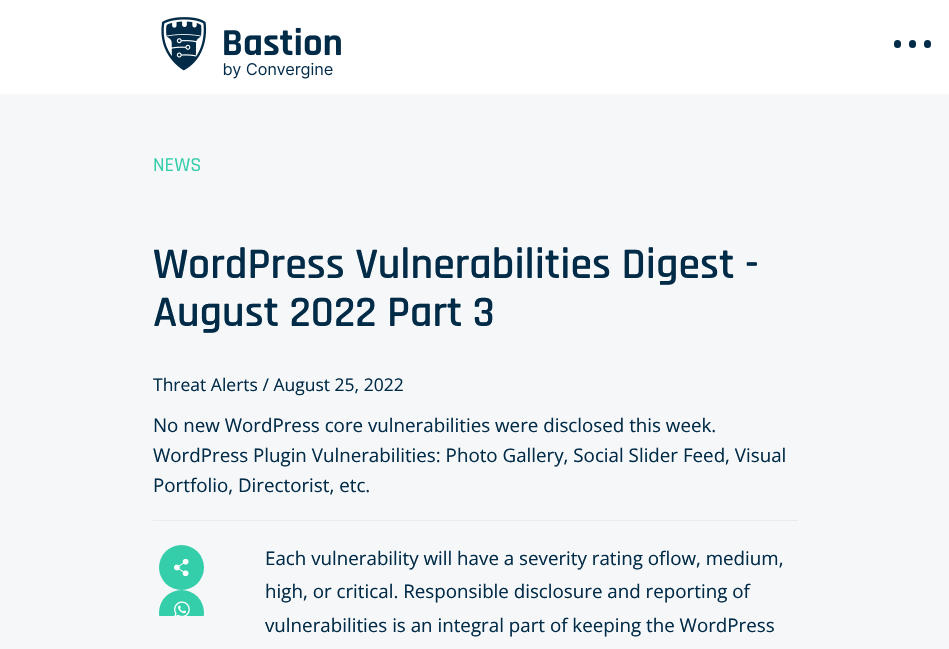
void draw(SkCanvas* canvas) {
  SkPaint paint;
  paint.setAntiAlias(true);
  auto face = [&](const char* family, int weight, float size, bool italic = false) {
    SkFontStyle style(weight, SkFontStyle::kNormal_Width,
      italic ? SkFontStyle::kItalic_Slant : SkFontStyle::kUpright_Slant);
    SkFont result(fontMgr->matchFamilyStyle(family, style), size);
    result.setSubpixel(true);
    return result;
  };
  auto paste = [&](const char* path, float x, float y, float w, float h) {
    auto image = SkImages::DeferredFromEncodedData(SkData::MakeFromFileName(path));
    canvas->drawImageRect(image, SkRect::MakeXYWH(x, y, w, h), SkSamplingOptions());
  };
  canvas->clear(0xfff5f7f9);
  paint.setColor(0xffffffff);
  canvas->drawRect(SkRect::MakeXYWH(0, 0, 949, 94), paint);
  paste("img/1.png", 161, 17, 180, 62);
  paint.setColor(0xff012b47);
  canvas->drawRoundRect(SkRect::MakeXYWH(894, 40, 7, 8), 3.5f, 3.5f, paint);
  canvas->drawRoundRect(SkRect::MakeXYWH(909, 40, 7, 8), 3.5f, 3.5f, paint);
  canvas->drawRoundRect(SkRect::MakeXYWH(924, 40, 7, 8), 3.5f, 3.5f, paint);
  paint.setColor(0xffe7edef);
  canvas->drawRect(SkRect::MakeXYWH(153, 520, 645, 1), paint);
  paint.setColor(0xff35ceab);
  canvas->drawCircle(181.5f, 567.5f, 22.5f, paint);
  paste("img/2.png", 174, 559, 15, 17);
  canvas->save();
  canvas->clipRect(SkRect::MakeXYWH(153, 541, 82, 75));
  canvas->drawCircle(181.5f, 612.5f, 22.5f, paint);
  canvas->restore();
  paste("img/3.png", 174, 601, 16, 15);
  auto f0 = face("Rajdhani", 500, 20);
  canvas->drawString("NEWS", 153, 171, f0, paint);
  auto f1 = face("Rajdhani", 600, 43.75f);
  paint.setColor(0xff012b47);
  canvas->drawString("WordPress Vulnerabilities Digest -", 153, 278, f1, paint);
  canvas->drawString("August 2022 Part 3", 153, 326, f1, paint);
  auto f2 = face("Open Sans", 400, 17.5f);
  canvas->drawString("Threat Alerts / August 25, 2022", 153, 391, f2, paint);
  auto f3 = face("Open Sans", 400, 18.75f);
  {
    const struct { const char* s; float x, y; } items[] = {
      {"No new WordPress core vulnerabilities were disclosed this week.", 153, 432},
      {"WordPress Plugin Vulnerabilities: Photo Gallery, Social Slider Feed, Visual", 153, 462},
      {"Portfolio, Directorist, etc.", 153, 492},
      {"Each vulnerability will have a severity rating oflow, medium,", 265, 565},
      {"high, or critical. Responsible disclosure and reporting of", 265, 598},
      {"vulnerabilities is an integral part of keeping the WordPress", 265, 632},
    };
    for (auto [s, x, y] : items) {
      canvas->drawString(s, x, y, f3, paint);
    }
  }
}
